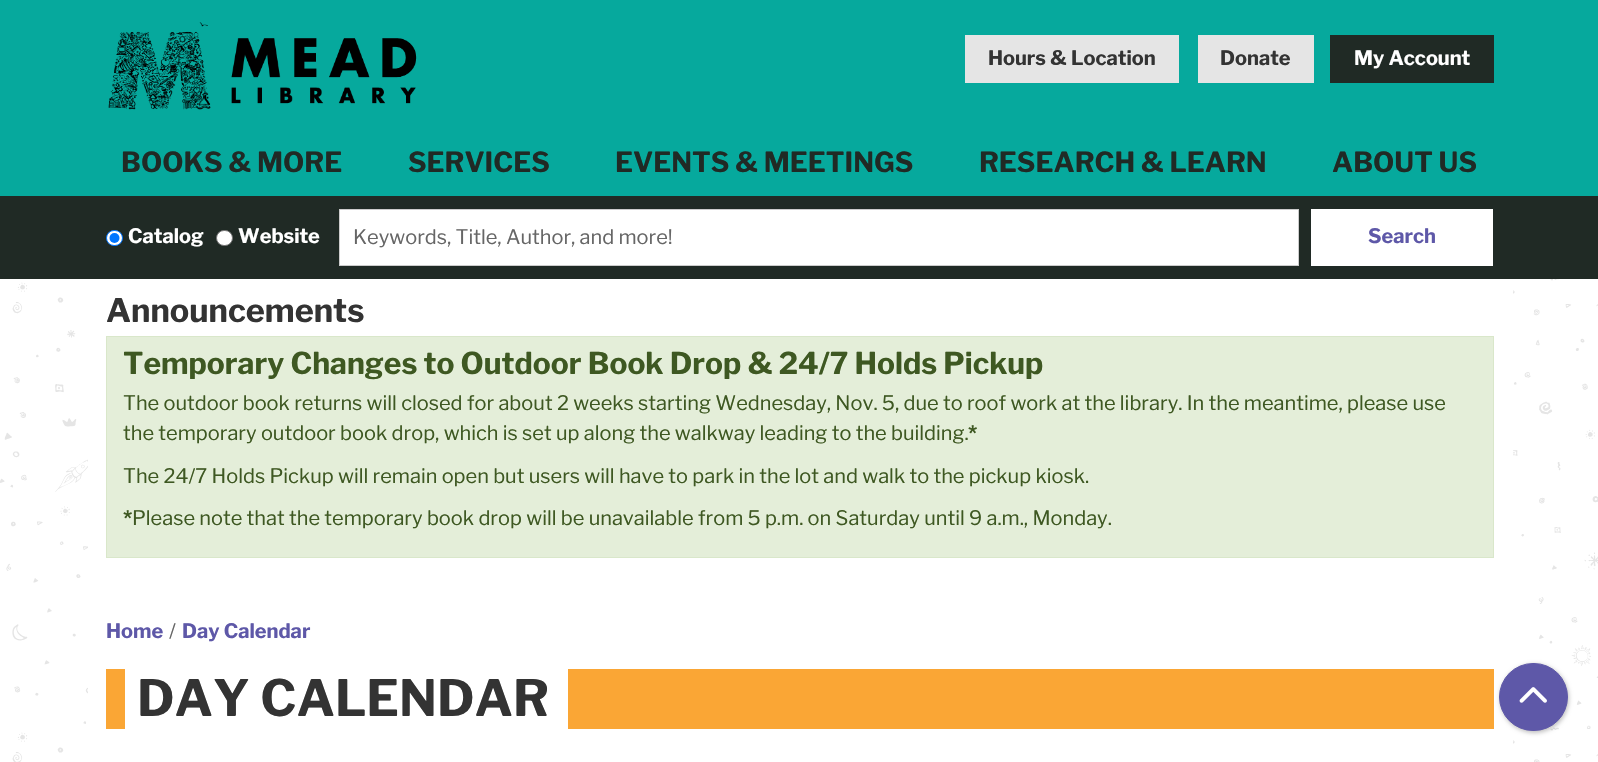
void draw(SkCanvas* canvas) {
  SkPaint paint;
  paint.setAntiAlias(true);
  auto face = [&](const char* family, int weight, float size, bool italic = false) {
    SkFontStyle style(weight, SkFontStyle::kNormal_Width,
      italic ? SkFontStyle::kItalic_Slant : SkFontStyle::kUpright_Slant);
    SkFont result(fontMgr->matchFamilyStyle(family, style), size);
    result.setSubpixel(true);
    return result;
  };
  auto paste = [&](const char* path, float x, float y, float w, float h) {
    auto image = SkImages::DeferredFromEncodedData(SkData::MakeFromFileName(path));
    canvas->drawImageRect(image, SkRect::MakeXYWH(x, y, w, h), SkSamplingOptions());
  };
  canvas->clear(0xffffffff);
  paste("img/1.png", 0, 279, 1598, 483);
  paint.setColor(0xff06a99d);
  canvas->drawRect(SkRect::MakeXYWH(0, 0, 1598, 196), paint);
  paste("img/2.png", 108, 22, 309, 88);
  {
    const struct { float x, y, w, h; SkColor color; } items[] = {
      {965, 35, 214, 48, 0xffe5e5e5},
      {1198, 35, 116, 48, 0xffe5e5e5},
      {1330, 35, 164, 48, 0xff202a25},
      {0, 196, 1598, 83, 0xff202a25},
    };
    for (auto [x, y, w, h, color] : items) {
      paint.setColor(color);
      canvas->drawRect(SkRect::MakeXYWH(x, y, w, h), paint);
    }
  }
  paint.setColor(0xffffffff);
  canvas->drawRoundRect(SkRect::MakeXYWH(106.5f, 230.5f, 16, 15), 7.5f, 7.5f, paint);
  paint.setStroke(true);
  paint.setStrokeWidth(1);
  paint.setColor(0xff0075ff);
  canvas->drawRoundRect(SkRect::MakeXYWH(106.5f, 230.5f, 16, 15), 7.5f, 7.5f, paint);
  paint.setStroke(false);
  canvas->drawCircle(114.5f, 238, 5, paint);
  paint.setColor(0xffffffff);
  canvas->drawRoundRect(SkRect::MakeXYWH(216.5f, 230.5f, 16, 15), 7.5f, 7.5f, paint);
  paint.setStroke(true);
  paint.setColor(0xff767676);
  canvas->drawRoundRect(SkRect::MakeXYWH(216.5f, 230.5f, 16, 15), 7.5f, 7.5f, paint);
  paint.setStroke(false);
  paint.setColor(0xffffffff);
  canvas->drawRect(SkRect::MakeXYWH(339.5f, 209.5f, 959, 56), paint);
  paint.setStroke(true);
  paint.setColor(0xffcccccc);
  canvas->drawRect(SkRect::MakeXYWH(339.5f, 209.5f, 959, 56), paint);
  paint.setStroke(false);
  paint.setColor(0xffffffff);
  canvas->drawRect(SkRect::MakeXYWH(1311, 209, 182, 57), paint);
  canvas->drawRect(SkRect::MakeXYWH(88, 279, 1425, 483), paint);
  paint.setColor(0xffe4eed9);
  canvas->drawRect(SkRect::MakeXYWH(106.5f, 336.5f, 1387, 221), paint);
  paint.setStroke(true);
  paint.setColor(0xffd9e7ca);
  canvas->drawRect(SkRect::MakeXYWH(106.5f, 336.5f, 1387, 221), paint);
  paint.setStroke(false);
  paint.setColor(0xfffaa635);
  canvas->drawRect(SkRect::MakeXYWH(106, 669, 1388, 60), paint);
  paint.setColor(0xffffffff);
  canvas->drawRect(SkRect::MakeXYWH(125, 669, 443, 60), paint);
  paint.setColor(0x40000000);
  paint.setMaskFilter(SkMaskFilter::MakeBlur(kNormal_SkBlurStyle, 2));
  canvas->drawRoundRect(SkRect::MakeXYWH(1500, 664, 69, 69), 34.5f, 34.5f, paint);
  paint.setMaskFilter(nullptr);
  paint.setColor(0xff5e58a8);
  canvas->drawRoundRect(SkRect::MakeXYWH(1499.5f, 663.5f, 68, 67), 33.5f, 33.5f, paint);
  paint.setStroke(true);
  canvas->drawRoundRect(SkRect::MakeXYWH(1499.5f, 663.5f, 68, 67), 33.5f, 33.5f, paint);
  paste("img/3.png", 1519, 687, 28, 16);
  auto f0 = face("Libre Franklin", 700, 20);
  paint.setStroke(false);
  paint.setColor(0xff333333);
  canvas->drawString("Hours & Location", 988, 65, f0, paint);
  canvas->drawString("Donate", 1220, 65, f0, paint);
  paint.setColor(0xffffffff);
  canvas->drawString("My Account", 1354, 65, f0, paint);
  auto f1 = face("Libre Franklin", 700, 27.5f);
  paint.setColor(0xff202a25);
  {
    const struct { const char* s; float x, y; } items[] = {
      {"BOOKS & MORE", 121, 172},
      {"SERVICES", 408, 172},
      {"EVENTS & MEETINGS", 615, 172},
      {"RESEARCH & LEARN", 979, 172},
      {"ABOUT US", 1332, 172},
    };
    for (auto [s, x, y] : items) {
      canvas->drawString(s, x, y, f1, paint);
    }
  }
  paint.setColor(0xffffffff);
  canvas->drawString("Catalog", 128, 243, f0, paint);
  canvas->drawString("Website", 238, 243, f0, paint);
  auto f2 = face("Libre Franklin", 400, 20);
  paint.setColor(0xff666666);
  canvas->drawString("Keywords, Title, Author, and more!", 353, 244, f2, paint);
  paint.setColor(0xff5e58a8);
  canvas->drawString("Search", 1368, 243, f0, paint);
  auto f3 = face("Libre Franklin", 700, 32.5f);
  paint.setColor(0xff333333);
  canvas->drawString("Announcements", 106, 322, f3, paint);
  auto f4 = face("Libre Franklin", 700, 30);
  paint.setColor(0xff3e5822);
  canvas->drawString("Temporary Changes to Outdoor Book Drop & 24/7 Holds Pickup", 123, 374, f4, paint);
  canvas->drawString("The outdoor book returns will closed for about 2 weeks starting Wednesday, Nov. 5, due to roof work at the library. In the meantime, please use", 123, 410, f2, paint);
  canvas->drawString("the temporary outdoor book drop, which is set up along the walkway leading to the building.", 123, 440, f2, paint);
  canvas->drawString("*", 968, 440, f0, paint);
  canvas->drawString("The 24/7 Holds Pickup will remain open but users will have to park in the lot and walk to the pickup kiosk.", 123, 483, f2, paint);
  canvas->drawString("*", 123, 525, f0, paint);
  canvas->drawString("Please note that the temporary book drop will be unavailable from 5 p.m. on Saturday until 9 a.m., Monday.", 132, 525, f2, paint);
  paint.setColor(0xff5e58a8);
  canvas->drawString("Home", 106, 638, f0, paint);
  paint.setColor(0xff666666);
  canvas->drawString("/", 169, 638, f2, paint);
  paint.setColor(0xff5e58a8);
  canvas->drawString("Day Calendar", 182, 638, f0, paint);
  auto f5 = face("Libre Franklin", 700, 50);
  paint.setColor(0xff333333);
  canvas->drawString("DAY CALENDAR", 137, 716, f5, paint);
}
